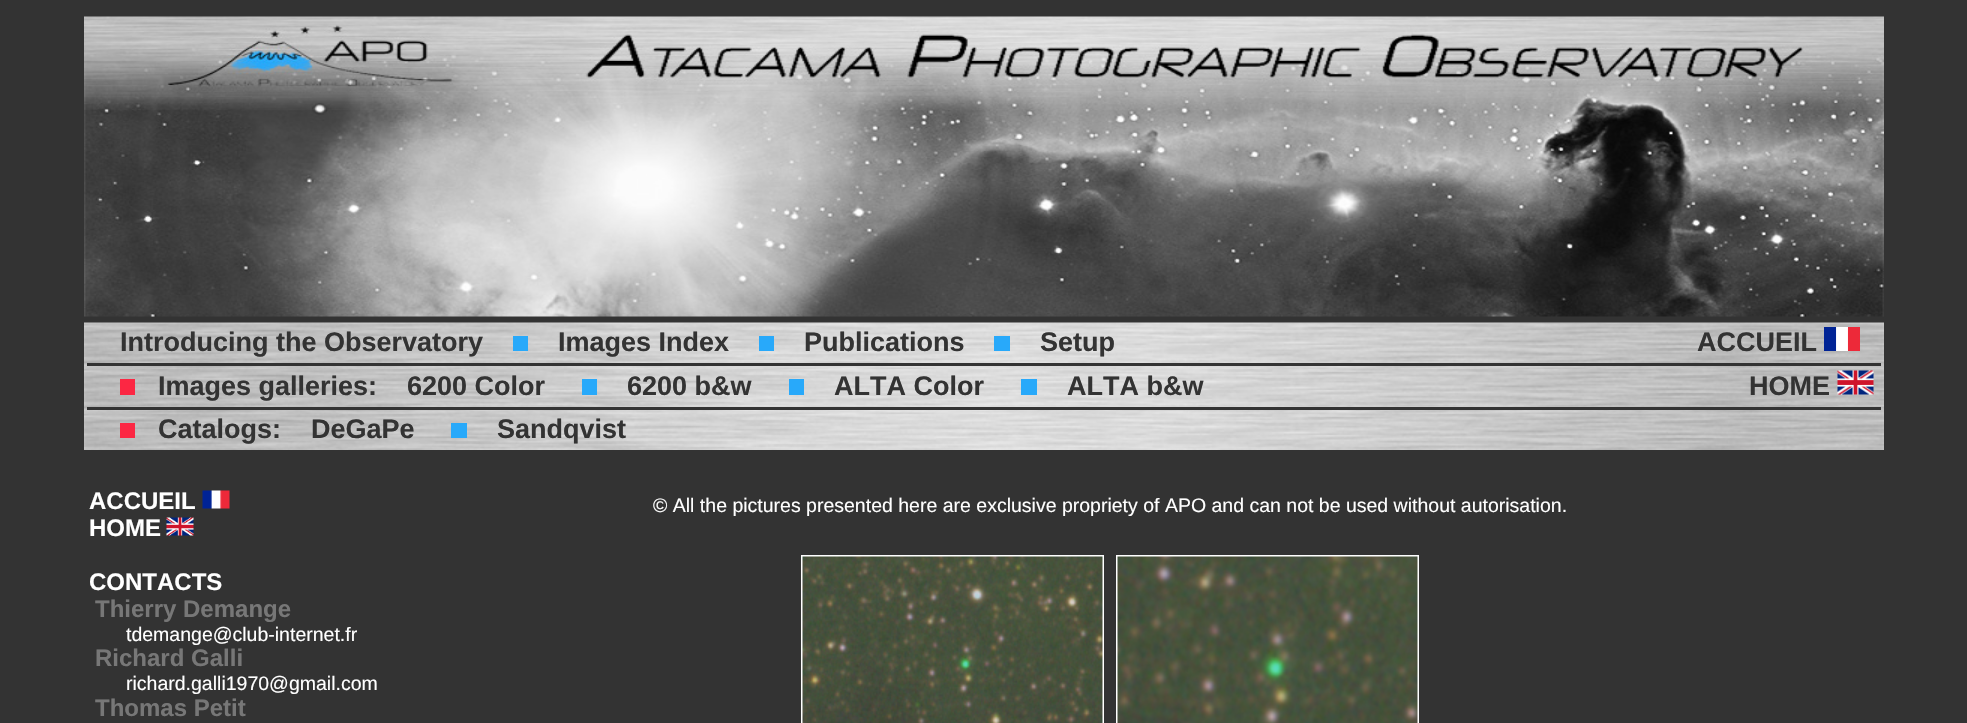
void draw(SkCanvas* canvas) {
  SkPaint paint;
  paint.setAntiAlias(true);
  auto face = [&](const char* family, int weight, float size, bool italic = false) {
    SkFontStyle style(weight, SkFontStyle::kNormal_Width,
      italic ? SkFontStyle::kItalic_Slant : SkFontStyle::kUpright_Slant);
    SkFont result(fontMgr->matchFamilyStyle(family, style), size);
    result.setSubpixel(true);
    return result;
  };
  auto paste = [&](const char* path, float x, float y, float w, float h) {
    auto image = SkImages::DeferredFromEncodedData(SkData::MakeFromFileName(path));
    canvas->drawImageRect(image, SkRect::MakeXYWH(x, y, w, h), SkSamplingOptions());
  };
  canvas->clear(0xff333333);
  paste("img/1.png", 84, 16, 1800, 301);
  paste("img/2.png", 84, 322, 1800, 128);
  {
    const struct { float x, y, w, h; SkColor color; } items[] = {
      {513, 336, 15, 15, 0xff28a9fa},
      {759, 336, 15, 15, 0xff28a9fa},
      {994, 336, 16, 15, 0xff28a9fa},
    };
    for (auto [x, y, w, h, color] : items) {
      paint.setColor(color);
      canvas->drawRect(SkRect::MakeXYWH(x, y, w, h), paint);
    }
  }
  paste("img/3.png", 1824, 327, 36, 24);
  {
    const struct { float x, y, w, h; SkColor color; } items[] = {
      {87, 363, 1794, 3, 0xff333333},
      {120, 379, 15, 16, 0xfffc2743},
      {582, 379, 15, 16, 0xff28a9fa},
      {789, 379, 15, 16, 0xff28a9fa},
      {1021, 379, 16, 16, 0xff28a9fa},
    };
    for (auto [x, y, w, h, color] : items) {
      paint.setColor(color);
      canvas->drawRect(SkRect::MakeXYWH(x, y, w, h), paint);
    }
  }
  paste("img/4.png", 1837, 370, 37, 25);
  {
    const struct { float x, y, w, h; SkColor color; } items[] = {
      {87, 407, 1794, 3, 0xff333333},
      {120, 423, 15, 15, 0xfffc2743},
      {451, 423, 16, 15, 0xff28a9fa},
    };
    for (auto [x, y, w, h, color] : items) {
      paint.setColor(color);
      canvas->drawRect(SkRect::MakeXYWH(x, y, w, h), paint);
    }
  }
  paste("img/5.png", 202, 490, 28, 19);
  paste("img/6.png", 166, 517, 28, 19);
  paint.setStroke(true);
  paint.setStrokeWidth(2);
  paint.setColor(0xffffffff);
  canvas->drawRect(SkRect::MakeXYWH(802, 556, 301, 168), paint);
  canvas->drawRect(SkRect::MakeXYWH(1117, 556, 301, 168), paint);
  paste("img/7.png", 802, 556, 301, 167);
  paste("img/8.png", 1117, 556, 301, 167);
  auto f0 = face("Liberation Sans", 700, 27);
  paint.setStroke(false);
  paint.setColor(0xff333333);
  {
    const struct { const char* s; float x, y; } items[] = {
      {"Introducing the Observatory", 120, 351},
      {"Images Index", 558, 351},
      {"Publications", 804, 351},
      {"Setup", 1040, 351},
      {"ACCUEIL", 1697, 351},
      {"Images galleries:", 158, 395},
      {"6200 Color", 407, 395},
      {"6200 b&w", 627, 395},
      {"ALTA Color", 834, 395},
      {"ALTA b&w", 1067, 395},
      {"HOME", 1749, 395},
      {"Catalogs:", 158, 438},
      {"DeGaPe", 311, 438},
      {"Sandqvist", 497, 438},
    };
    for (auto [s, x, y] : items) {
      canvas->drawString(s, x, y, f0, paint);
    }
  }
  auto f1 = face("Liberation Sans", 700, 24);
  paint.setColor(0xffffffff);
  {
    const struct { const char* s; float x, y; } items[] = {
      {"ACCUEIL", 89, 509},
      {"HOME", 89, 536},
      {"CONTACTS", 89, 590},
    };
    for (auto [s, x, y] : items) {
      canvas->drawString(s, x, y, f1, paint);
    }
  }
  paint.setColor(0xff777777);
  canvas->drawString("Thierry Demange", 95, 617, f1, paint);
  auto f2 = face("Liberation Sans", 400, 19.5f);
  paint.setColor(0xffffffff);
  canvas->drawString("tdemange@club-internet.fr", 126, 641, f2, paint);
  paint.setColor(0xff777777);
  canvas->drawString("Richard Galli", 95, 666, f1, paint);
  paint.setColor(0xffffffff);
  canvas->drawString("richard.galli1970@gmail.com", 126, 690, f2, paint);
  paint.setColor(0xff777777);
  canvas->drawString("Thomas Petit", 95, 716, f1, paint);
  paint.setColor(0xffffffff);
  canvas->drawString("© All the pictures presented here are exclusive propriety of APO and can not be used without autorisation.", 653, 512, f2, paint);
}
